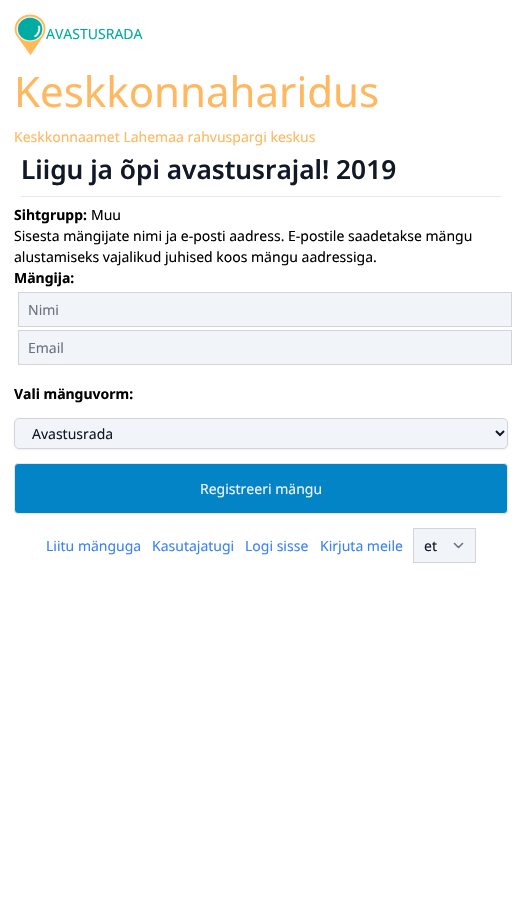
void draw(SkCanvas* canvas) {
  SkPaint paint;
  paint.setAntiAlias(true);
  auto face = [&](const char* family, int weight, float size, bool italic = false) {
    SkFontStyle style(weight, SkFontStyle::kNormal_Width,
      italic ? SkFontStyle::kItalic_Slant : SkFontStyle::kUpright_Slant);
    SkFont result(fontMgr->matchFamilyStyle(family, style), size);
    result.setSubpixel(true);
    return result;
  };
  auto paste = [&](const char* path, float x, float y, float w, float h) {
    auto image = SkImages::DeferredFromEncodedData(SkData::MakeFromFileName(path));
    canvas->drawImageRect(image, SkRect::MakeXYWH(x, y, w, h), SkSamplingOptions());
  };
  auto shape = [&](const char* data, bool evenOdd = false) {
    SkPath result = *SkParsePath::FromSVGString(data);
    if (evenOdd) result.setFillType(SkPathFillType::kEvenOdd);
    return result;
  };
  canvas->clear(0xffffffff);
  paste("img/1.png", 14, 14, 32, 42);
  paint.setColor(0xffe5e7eb);
  canvas->drawRect(SkRect::MakeXYWH(21, 196, 480, 1), paint);
  paint.setColor(0xfff1f5f9);
  canvas->drawRect(SkRect::MakeXYWH(18.5f, 292.5f, 493, 34), paint);
  paint.setStroke(true);
  paint.setStrokeWidth(1);
  paint.setColor(0xffd1d5db);
  canvas->drawRect(SkRect::MakeXYWH(18.5f, 292.5f, 493, 34), paint);
  paint.setStroke(false);
  paint.setColor(0xfff1f5f9);
  canvas->drawRect(SkRect::MakeXYWH(18.5f, 330.5f, 493, 34), paint);
  paint.setStroke(true);
  paint.setColor(0xffd1d5db);
  canvas->drawRect(SkRect::MakeXYWH(18.5f, 330.5f, 493, 34), paint);
  paint.setStroke(false);
  paint.setColor(0x0d000000);
  paint.setMaskFilter(SkMaskFilter::MakeBlur(kNormal_SkBlurStyle, 1));
  canvas->drawRoundRect(SkRect::MakeXYWH(14, 419, 494, 31), 5, 5, paint);
  paint.setMaskFilter(nullptr);
  paint.setColor(0xfff1f5f9);
  canvas->drawRoundRect(SkRect::MakeXYWH(14.5f, 418.5f, 493, 30), 4.5f, 4.5f, paint);
  paint.setStroke(true);
  paint.setColor(0xffd1d5db);
  canvas->drawRoundRect(SkRect::MakeXYWH(14.5f, 418.5f, 493, 30), 4.5f, 4.5f, paint);
  paint.setStrokeWidth(2);
  paint.setColor(0xff111827);
  canvas->drawPath(shape("M496 431L500 435L504 431"), paint);
  paint.setStroke(false);
  paint.setColor(0xff0284c7);
  canvas->drawRoundRect(SkRect::MakeXYWH(14.5f, 463.5f, 493, 50), 3.5f, 3.5f, paint);
  paint.setStroke(true);
  paint.setStrokeWidth(1);
  paint.setColor(0xffe5e7eb);
  canvas->drawRoundRect(SkRect::MakeXYWH(14.5f, 463.5f, 493, 50), 3.5f, 3.5f, paint);
  paint.setStroke(false);
  paint.setColor(0xfff1f5f9);
  canvas->drawRect(SkRect::MakeXYWH(414, 529, 61, 33), paint);
  paint.setStroke(true);
  paint.setStrokeWidth(1.6f);
  paint.setStrokeCap(SkPaint::kRound_Cap);
  paint.setStrokeJoin(SkPaint::kRound_Join);
  paint.setColor(0xff6b7280);
  canvas->drawPath(shape("M454.5 543.5L458.5 547.5L462.5 543.5"), paint);
  paint.setStrokeWidth(1);
  paint.setStrokeCap(SkPaint::kButt_Cap);
  paint.setStrokeJoin(SkPaint::kMiter_Join);
  paint.setColor(0xffd1d5db);
  canvas->drawRect(SkRect::MakeXYWH(413.5f, 528.5f, 62, 34), paint);
  auto f0 = face("Noto Sans", 400, 14);
  paint.setStroke(false);
  paint.setColor(0xff00aba1);
  canvas->drawString("AVASTUSRADA", 46, 39, f0, paint);
  auto f1 = face("Noto Sans", 400, 42);
  paint.setColor(0xffffb860);
  canvas->drawString("Keskkonnaharidus", 14, 107, f1, paint);
  canvas->drawString("Keskkonnaamet Lahemaa rahvuspargi keskus", 14, 142, f0, paint);
  auto f2 = face("Noto Sans", 600, 26.25f);
  paint.setColor(0xff111827);
  canvas->drawString("Liigu ja õpi avastusrajal! 2019", 21, 179, f2, paint);
  auto f3 = face("Noto Sans", 700, 14);
  paint.setColor(0xff000000);
  canvas->drawString("Sihtgrupp:", 14, 220, f3, paint);
  {
    const struct { const char* s; float x, y; } items[] = {
      {"Muu", 91, 220},
      {"Sisesta mängijate nimi ja e-posti aadress. E-postile saadetakse mängu", 14, 241},
      {"alustamiseks vajalikud juhised koos mängu aadressiga.", 14, 262},
    };
    for (auto [s, x, y] : items) {
      canvas->drawString(s, x, y, f0, paint);
    }
  }
  canvas->drawString("Mängija:", 14, 283, f3, paint);
  paint.setColor(0xff6b7280);
  canvas->drawString("Nimi", 28, 315, f0, paint);
  canvas->drawString("Email", 28, 353, f0, paint);
  paint.setColor(0xff000000);
  canvas->drawString("Vali mänguvorm:", 14, 399, f3, paint);
  paint.setColor(0xff111827);
  canvas->drawString("Avastusrada", 32, 439, f0, paint);
  paint.setColor(0xfff1f5f9);
  canvas->drawString("Registreeri mängu", 200, 494, f0, paint);
  paint.setColor(0xff3b82f6);
  {
    const struct { const char* s; float x, y; } items[] = {
      {"Liitu mänguga", 46, 551},
      {"Kasutajatugi", 152, 551},
      {"Logi sisse", 245, 551},
      {"Kirjuta meile", 320, 551},
    };
    for (auto [s, x, y] : items) {
      canvas->drawString(s, x, y, f0, paint);
    }
  }
  paint.setColor(0xff111827);
  canvas->drawString("et", 424, 551, f0, paint);
}
